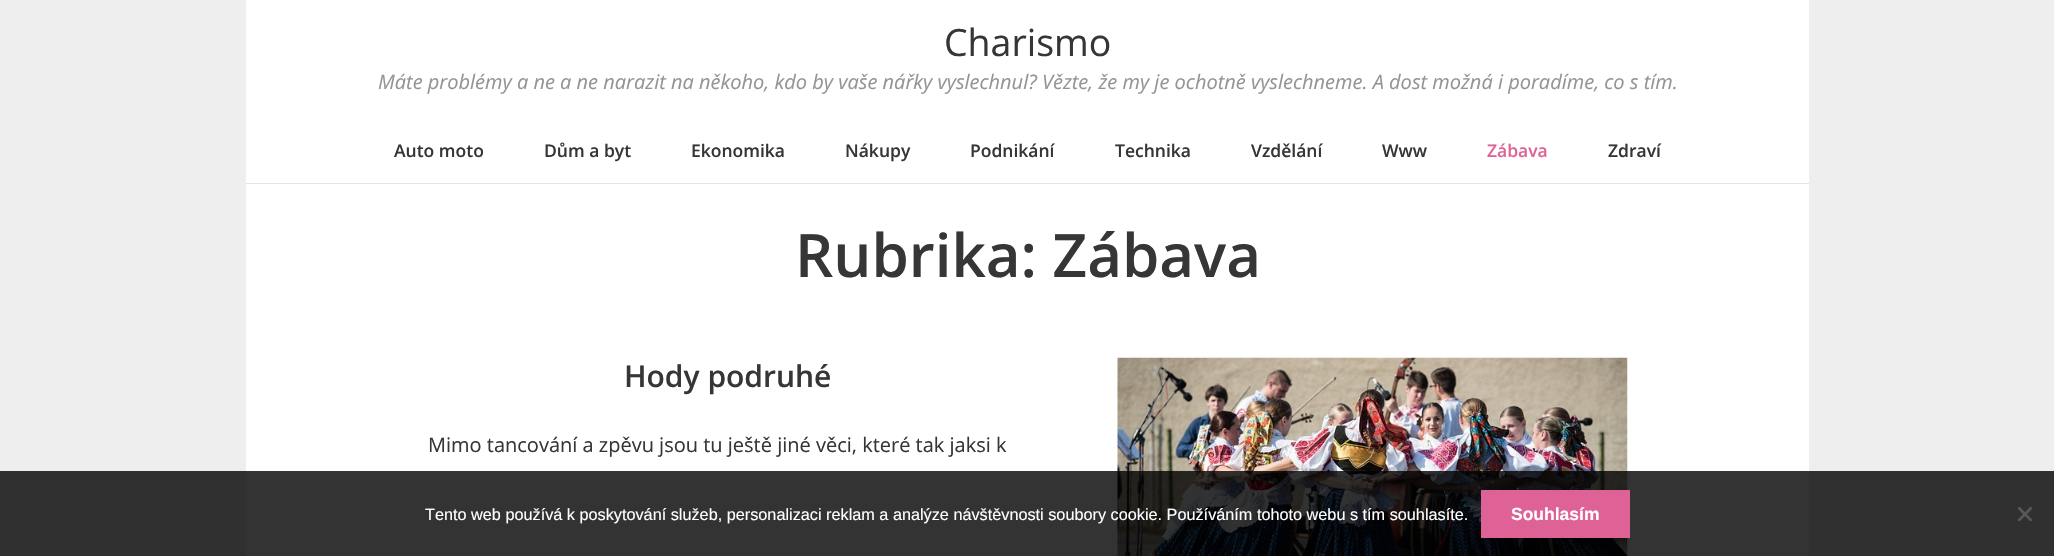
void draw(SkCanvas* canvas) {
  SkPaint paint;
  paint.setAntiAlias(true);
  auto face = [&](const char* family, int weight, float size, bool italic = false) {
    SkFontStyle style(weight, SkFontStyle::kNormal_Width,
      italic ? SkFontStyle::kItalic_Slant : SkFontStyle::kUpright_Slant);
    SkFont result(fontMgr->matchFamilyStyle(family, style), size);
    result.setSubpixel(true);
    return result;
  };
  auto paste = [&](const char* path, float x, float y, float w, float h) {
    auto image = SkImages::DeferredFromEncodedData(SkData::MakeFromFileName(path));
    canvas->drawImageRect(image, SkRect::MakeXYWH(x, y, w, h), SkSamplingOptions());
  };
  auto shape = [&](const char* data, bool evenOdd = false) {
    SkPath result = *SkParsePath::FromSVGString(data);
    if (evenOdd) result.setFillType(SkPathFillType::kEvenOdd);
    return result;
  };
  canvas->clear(0xffeeeeee);
  {
    const struct { float x, y, w, h; SkColor color; } items[] = {
      {246, 0, 1563, 183, 0xffffffff},
      {246, 183, 1563, 1, 0xffe6e6e6},
      {246, 184, 1563, 372, 0xffffffff},
    };
    for (auto [x, y, w, h, color] : items) {
      paint.setColor(color);
      canvas->drawRect(SkRect::MakeXYWH(x, y, w, h), paint);
    }
  }
  paste("img/1.png", 1117, 357, 511, 199);
  paint.setColor(0xcc000000);
  canvas->drawRect(SkRect::MakeXYWH(0, 471, 2054, 85), paint);
  paint.setColor(0xffdf6296);
  canvas->drawRect(SkRect::MakeXYWH(1481, 490, 149, 48), paint);
  paint.setColor(0xff585858);
  canvas->drawPath(shape("M2030.5 506.5L2032.5 508.5L2019.5 521.5L2017.5 520Z"), paint);
  canvas->drawPath(shape("M2017.5 508.5L2019.5 506.5L2032.5 520L2030.5 521.5Z"), paint);
  auto f0 = face("Open Sans", 400, 37.5f);
  paint.setColor(0xff363636);
  canvas->drawString("Charismo", 944, 56, f0, paint);
  auto f1 = face("Open Sans", 400, 20, true);
  paint.setColor(0xff949494);
  canvas->drawString("Máte problémy a ne a ne narazit na někoho, kdo by vaše nářky vyslechnul? Vězte, že my je ochotně vyslechneme. A dost možná i poradíme, co s tím.", 378, 89, f1, paint);
  auto f2 = face("Open Sans", 600, 17.5f);
  paint.setColor(0xff363636);
  {
    const struct { const char* s; float x, y; } items[] = {
      {"Auto moto", 394, 157},
      {"Dům a byt", 544, 157},
      {"Ekonomika", 691, 157},
      {"Nákupy", 845, 157},
      {"Podnikání", 970, 157},
      {"Technika", 1115, 157},
      {"Vzdělání", 1251, 157},
      {"Www", 1382, 157},
    };
    for (auto [s, x, y] : items) {
      canvas->drawString(s, x, y, f2, paint);
    }
  }
  paint.setColor(0xffdf6296);
  canvas->drawString("Zábava", 1487, 157, f2, paint);
  paint.setColor(0xff363636);
  canvas->drawString("Zdraví", 1608, 157, f2, paint);
  auto f3 = face("Open Sans", 600, 60);
  canvas->drawString("Rubrika: Zábava", 795, 277, f3, paint);
  auto f4 = face("Open Sans", 600, 30);
  canvas->drawString("Hody podruhé", 624, 387, f4, paint);
  auto f5 = face("Open Sans", 400, 20);
  canvas->drawString("Mimo tancování a zpěvu jsou tu ještě jiné věci, které tak jaksi k", 428, 452, f5, paint);
  auto f6 = face("Liberation Sans", 400, 16.25f);
  paint.setColor(0xffffffff);
  canvas->drawString("Tento web používá k poskytování služeb, personalizaci reklam a analýze návštěvnosti soubory cookie. Používáním tohoto webu s tím souhlasíte.", 425, 520, f6, paint);
  auto f7 = face("Liberation Sans", 700, 17.5f);
  canvas->drawString("Souhlasím", 1511, 520, f7, paint);
}
